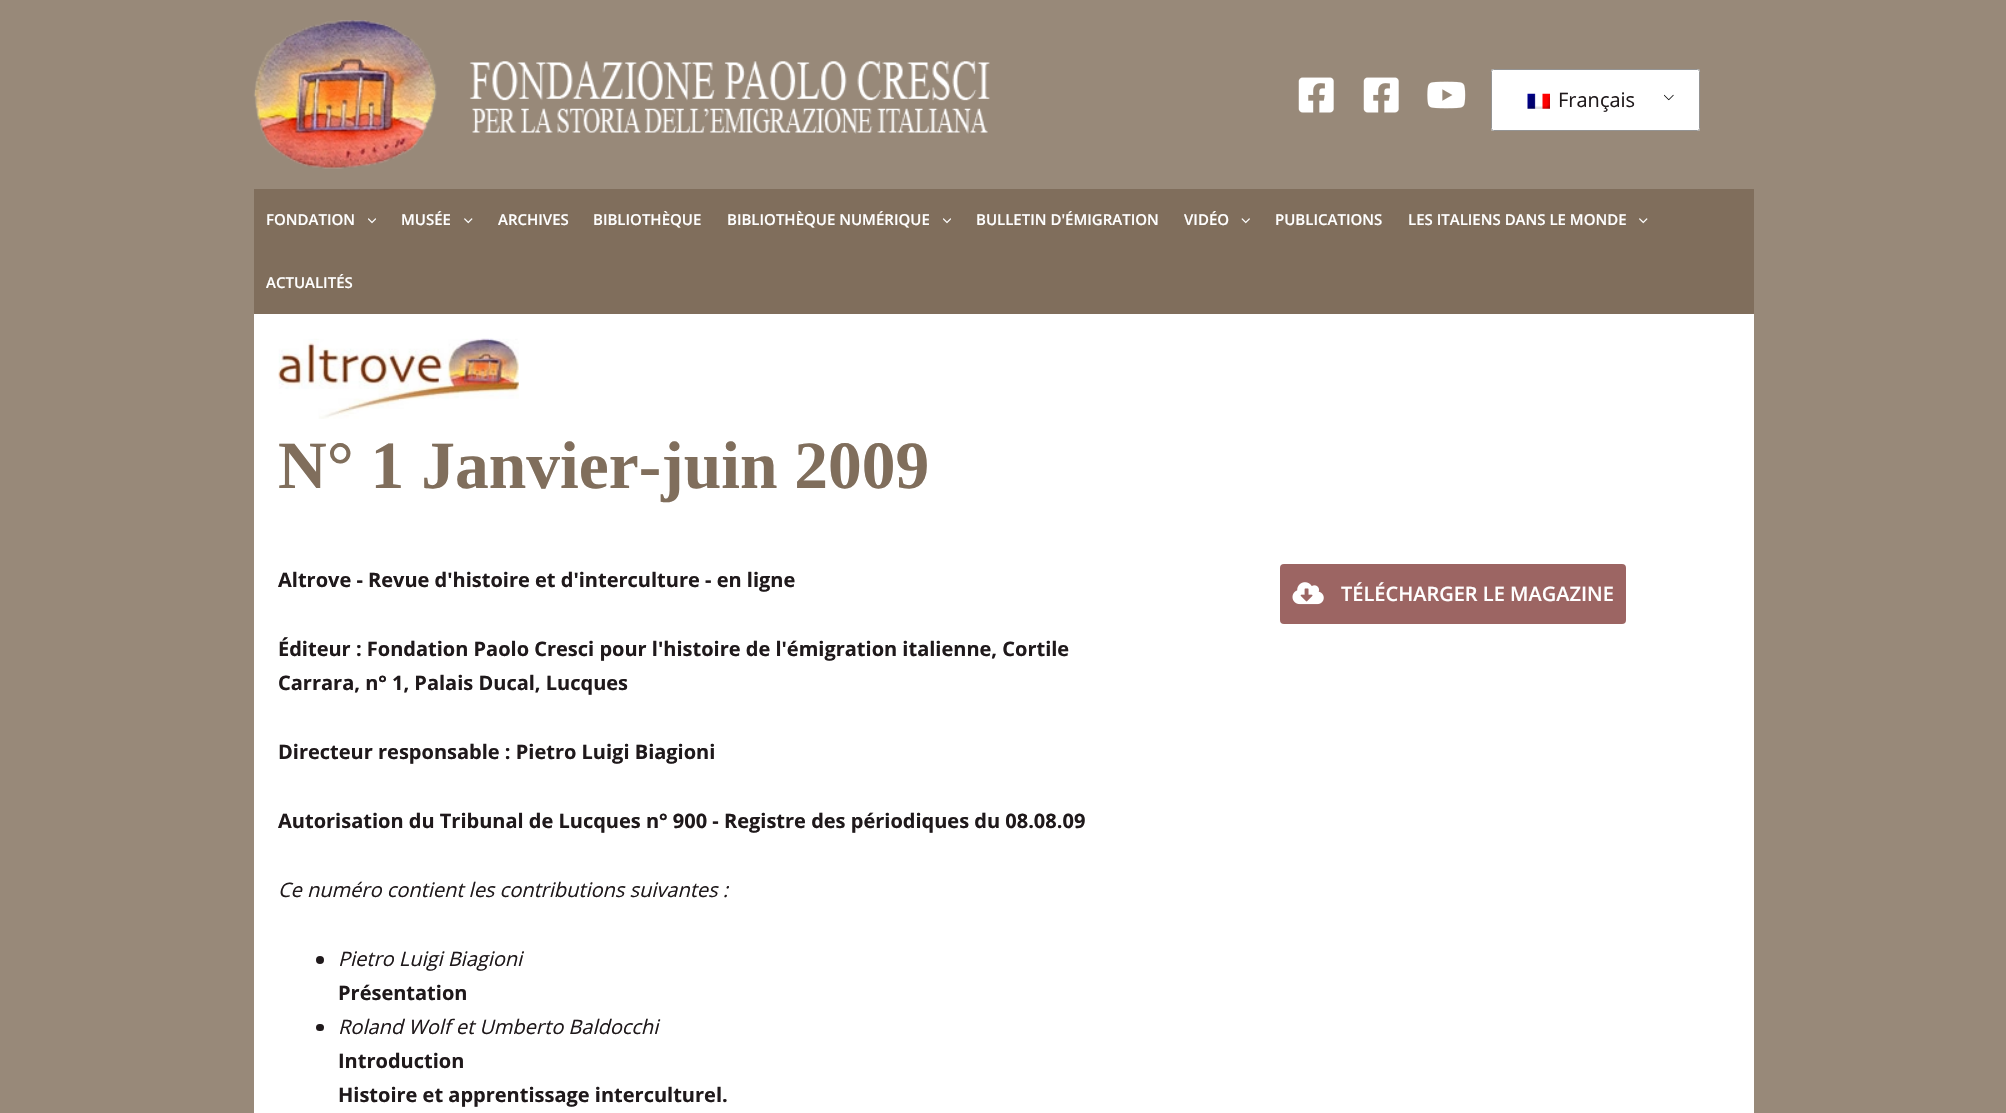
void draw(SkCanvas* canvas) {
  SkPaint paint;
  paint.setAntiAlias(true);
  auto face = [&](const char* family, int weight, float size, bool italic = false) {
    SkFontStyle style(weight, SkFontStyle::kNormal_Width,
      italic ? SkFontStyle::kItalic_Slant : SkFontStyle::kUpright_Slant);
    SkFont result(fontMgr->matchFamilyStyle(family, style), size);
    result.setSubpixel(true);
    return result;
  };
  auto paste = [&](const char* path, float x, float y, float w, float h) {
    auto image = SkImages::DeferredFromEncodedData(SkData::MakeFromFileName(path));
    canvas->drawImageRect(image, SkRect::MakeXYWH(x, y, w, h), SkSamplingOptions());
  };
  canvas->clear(0xff988979);
  paste("img/1.png", 253, 20, 737, 149);
  paste("img/2.png", 1298, 77, 36, 36);
  paste("img/2.png", 1363, 77, 36, 36);
  paste("img/3.png", 1427, 81, 39, 28);
  paint.setColor(0xffffffff);
  canvas->drawRoundRect(SkRect::MakeXYWH(1491, 69, 209, 62), 2.5f, 2.5f, paint);
  paste("img/4.png", 1664, 94, 10, 7);
  paint.setStroke(true);
  paint.setStrokeWidth(1);
  paint.setColor(0xff949494);
  canvas->drawRoundRect(SkRect::MakeXYWH(1491.5f, 69.5f, 208, 61), 2, 2, paint);
  paste("img/5.png", 1527, 93, 23, 16);
  paint.setStroke(false);
  paint.setColor(0xff806e5c);
  canvas->drawRect(SkRect::MakeXYWH(254, 189, 1500, 125), paint);
  paste("img/6.png", 368, 218, 8, 6);
  paste("img/7.png", 464, 218, 9, 6);
  paste("img/6.png", 943, 218, 8, 6);
  paste("img/8.png", 1241, 218, 9, 6);
  paste("img/7.png", 1639, 218, 9, 6);
  paint.setColor(0xffffffff);
  canvas->drawRect(SkRect::MakeXYWH(254, 314, 1500, 799), paint);
  paste("img/9.png", 278, 338, 241, 81);
  paint.setColor(0xff1f191b);
  canvas->drawCircle(320, 960, 4, paint);
  canvas->drawRoundRect(SkRect::MakeXYWH(316, 1024, 8, 7), 3.5f, 3.5f, paint);
  paint.setColor(0xff9c6563);
  canvas->drawRoundRect(SkRect::MakeXYWH(1280, 564, 346, 60), 4, 4, paint);
  paste("img/10.png", 1292, 582, 32, 23);
  auto f0 = face("Open Sans", 400, 20);
  paint.setColor(0xff1f191b);
  canvas->drawString("Français", 1558, 107, f0, paint);
  auto f1 = face("Open Sans", 600, 15);
  paint.setColor(0xffffffff);
  {
    const struct { const char* s; float x, y; } items[] = {
      {"FONDATION", 266, 225},
      {"MUSÉE", 401, 225},
      {"ARCHIVES", 498, 225},
      {"BIBLIOTHÈQUE", 593, 225},
      {"BIBLIOTHÈQUE NUMÉRIQUE", 727, 225},
      {"BULLETIN D'ÉMIGRATION", 976, 225},
      {"VIDÉO", 1184, 225},
      {"PUBLICATIONS", 1275, 225},
      {"LES ITALIENS DANS LE MONDE", 1408, 225},
      {"ACTUALITÉS", 266, 288},
    };
    for (auto [s, x, y] : items) {
      canvas->drawString(s, x, y, f1, paint);
    }
  }
  auto f2 = face("Liberation Serif", 700, 67.5f);
  paint.setColor(0xff806e5c);
  canvas->drawString("N° 1 Janvier-juin 2009", 278, 488, f2, paint);
  auto f3 = face("Open Sans", 700, 20);
  paint.setColor(0xff1f191b);
  {
    const struct { const char* s; float x, y; } items[] = {
      {"Altrove - Revue d'histoire et d'interculture - en ligne", 278, 587},
      {"Éditeur : Fondation Paolo Cresci pour l'histoire de l'émigration italienne, Cortile", 278, 656},
      {"Carrara, n° 1, Palais Ducal, Lucques", 278, 690},
      {"Directeur responsable : Pietro Luigi Biagioni", 278, 759},
      {"Autorisation du Tribunal de Lucques n° 900 - Registre des périodiques du 08.08.09", 278, 828},
    };
    for (auto [s, x, y] : items) {
      canvas->drawString(s, x, y, f3, paint);
    }
  }
  auto f4 = face("Open Sans", 400, 20, true);
  canvas->drawString("Ce numéro contient les contributions suivantes :", 278, 897, f4, paint);
  canvas->drawString("Pietro Luigi Biagioni", 338, 966, f4, paint);
  canvas->drawString("Présentation", 338, 1000, f3, paint);
  canvas->drawString("Roland Wolf et Umberto Baldocchi", 338, 1034, f4, paint);
  canvas->drawString("Introduction", 338, 1068, f3, paint);
  canvas->drawString("Histoire et apprentissage interculturel.", 338, 1102, f3, paint);
  auto f5 = face("Open Sans", 600, 20);
  paint.setColor(0xffffffff);
  canvas->drawString("TÉLÉCHARGER LE MAGAZINE", 1341, 601, f5, paint);
}
